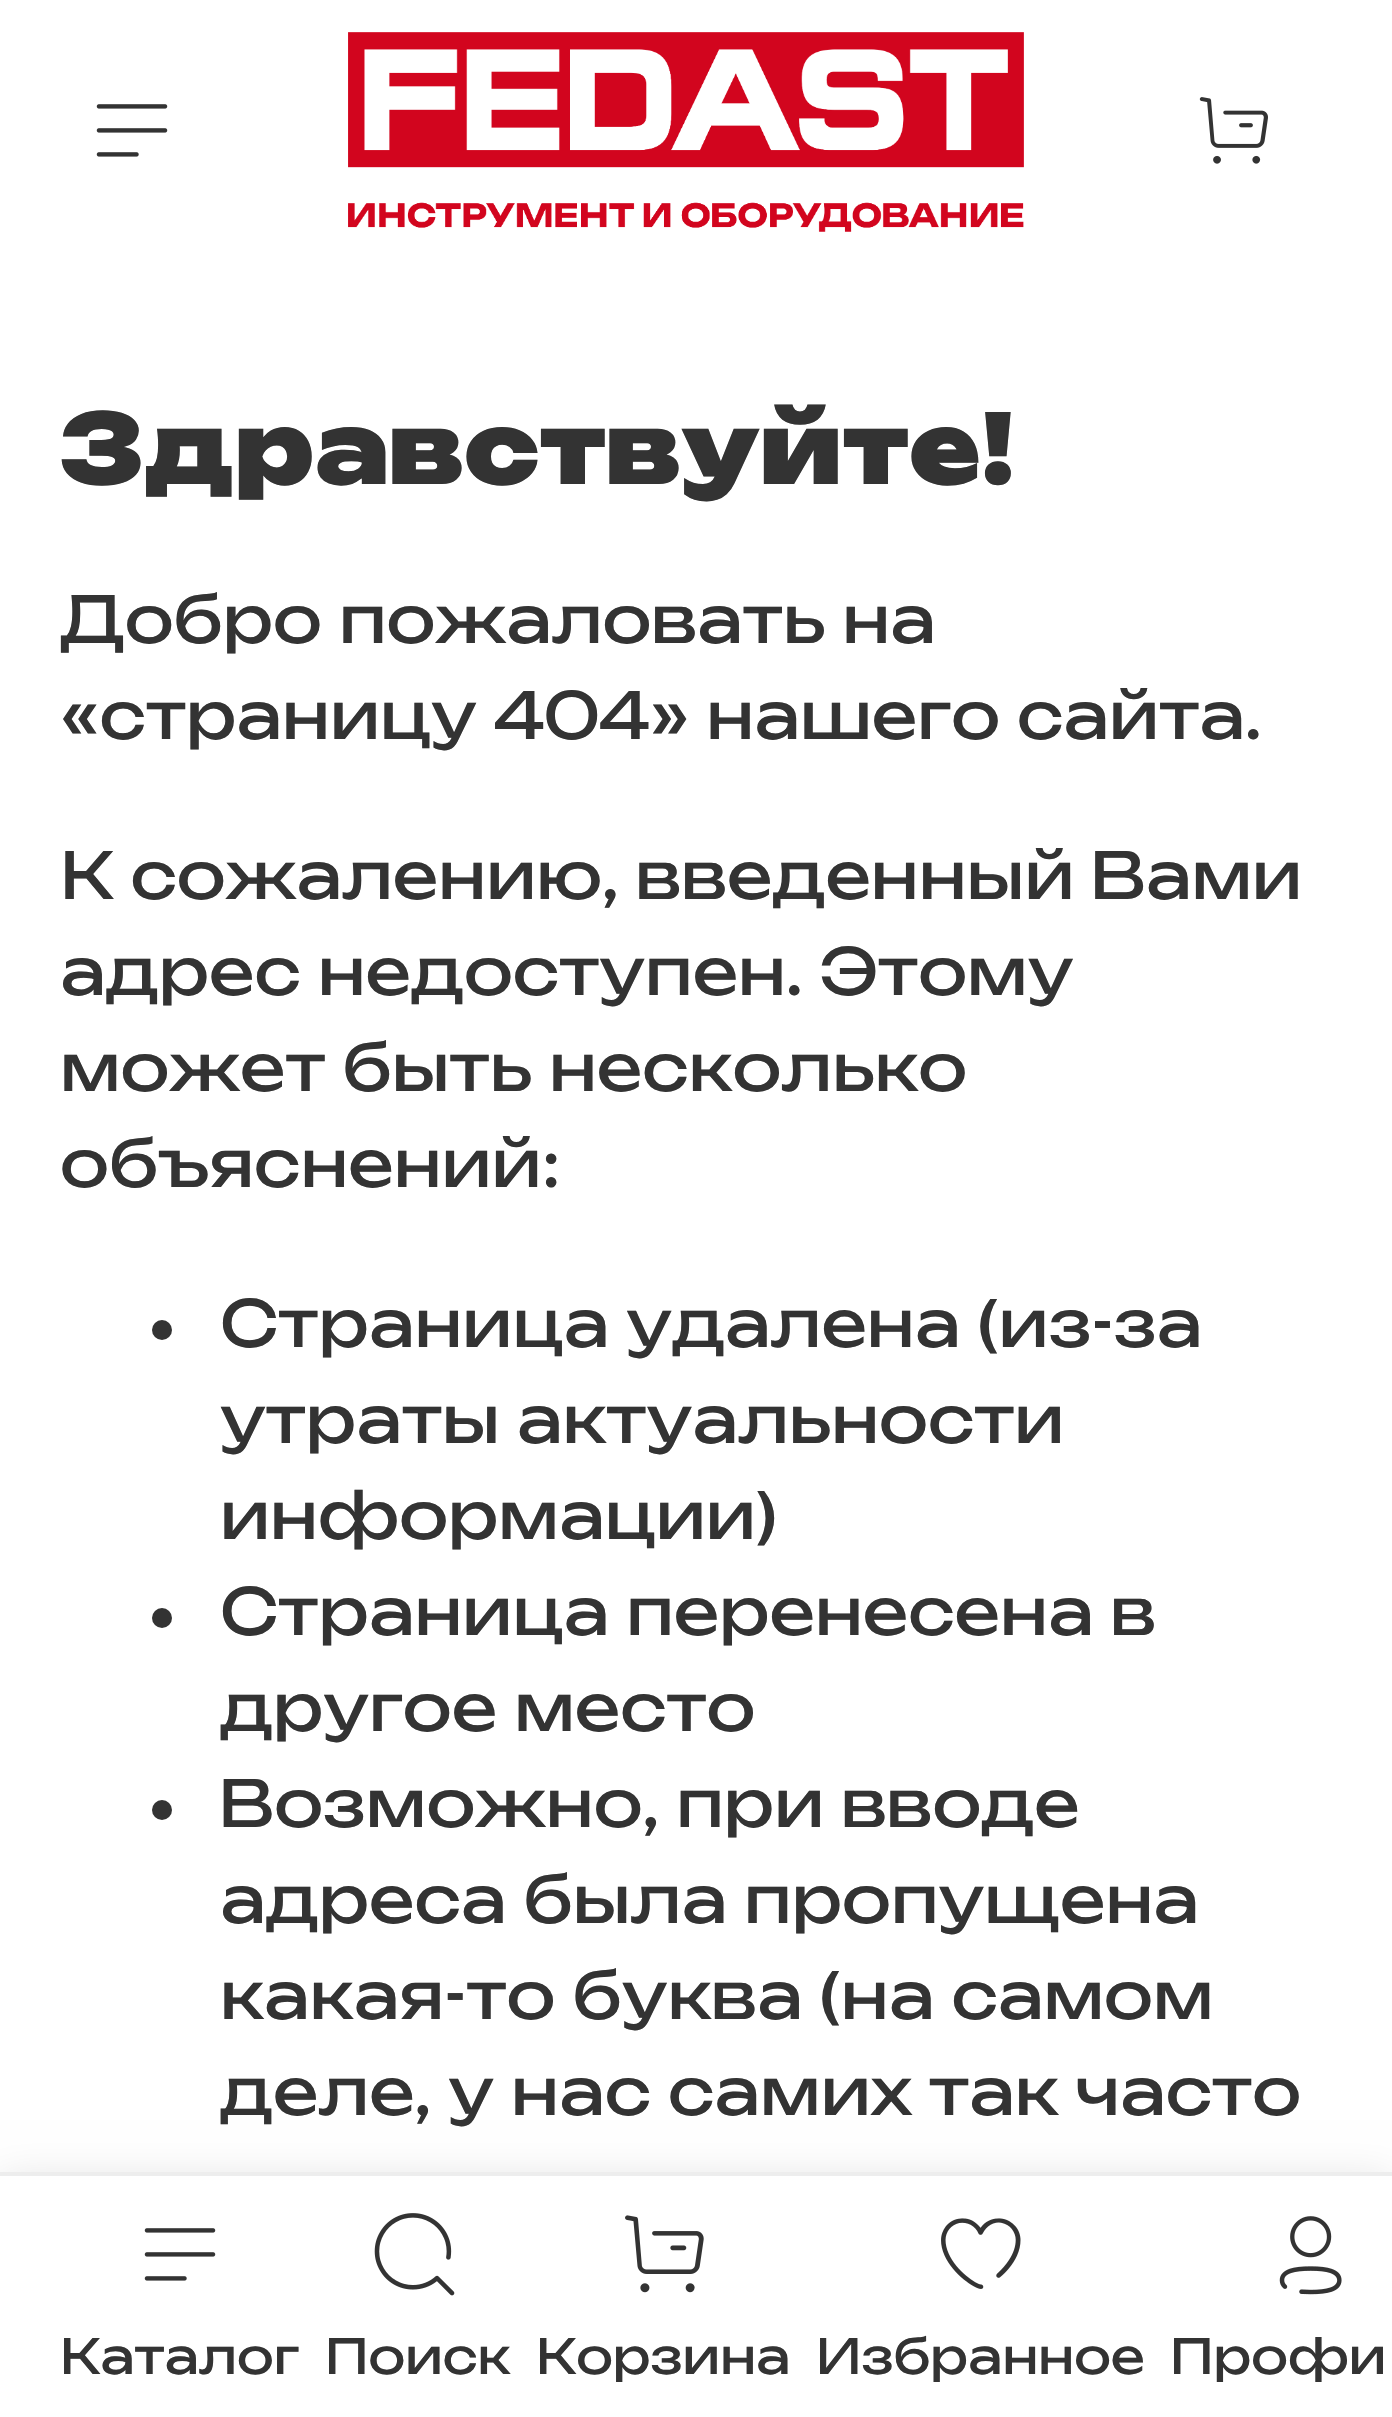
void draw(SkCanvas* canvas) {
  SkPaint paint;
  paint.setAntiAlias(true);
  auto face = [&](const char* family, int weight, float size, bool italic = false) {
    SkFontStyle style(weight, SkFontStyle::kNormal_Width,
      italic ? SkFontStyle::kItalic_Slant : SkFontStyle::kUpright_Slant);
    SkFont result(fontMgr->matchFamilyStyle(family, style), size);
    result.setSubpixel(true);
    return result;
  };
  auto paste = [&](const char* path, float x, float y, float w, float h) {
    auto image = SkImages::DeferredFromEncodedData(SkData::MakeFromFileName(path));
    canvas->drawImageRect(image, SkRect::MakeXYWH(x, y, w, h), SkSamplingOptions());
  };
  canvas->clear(0xffffffff);
  paste("img/1.png", 96, 104, 72, 53);
  paste("img/2.png", 348, 32, 676, 200);
  paste("img/3.png", 1199, 97, 69, 67);
  paint.setColor(0xff333333);
  canvas->drawCircle(162, 1330, 10, paint);
  canvas->drawCircle(162, 1618, 10, paint);
  canvas->drawCircle(162, 1810, 10, paint);
  paint.setColor(0x1f000000);
  paint.setMaskFilter(SkMaskFilter::MakeBlur(kNormal_SkBlurStyle, 20));
  canvas->drawRect(SkRect::MakeXYWH(0, 2180, 1392, 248), paint);
  paint.setMaskFilter(nullptr);
  paint.setColor(0xffffffff);
  canvas->drawRect(SkRect::MakeXYWH(0, 2176, 1392, 241), paint);
  paint.setColor(0xffededed);
  canvas->drawRect(SkRect::MakeXYWH(0, 2172, 1392, 4), paint);
  paste("img/1.png", 144, 2228, 72, 53);
  paste("img/4.png", 374, 2213, 81, 83);
  paste("img/5.png", 625, 2215, 79, 78);
  paste("img/6.png", 941, 2218, 80, 71);
  paste("img/7.png", 1279, 2216, 63, 79);
  auto f0 = face("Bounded", 900, 96);
  paint.setColor(0xff333333);
  canvas->drawString("Здравствуйте!", 60, 484, f0, paint);
  auto f1 = face("Bounded", 400, 64);
  {
    const struct { const char* s; float x, y; } items[] = {
      {"Добро пожаловать на", 60, 643},
      {"«страницу 404» нашего сайта.", 60, 739},
      {"К сожалению, введенный Вами", 60, 899},
      {"адрес недоступен. Этому", 60, 995},
      {"может быть несколько", 60, 1091},
      {"объяснений:", 60, 1187},
      {"Страница удалена (из-за", 220, 1347},
      {"утраты актуальности", 220, 1443},
      {"информации)", 220, 1539},
      {"Страница перенесена в", 220, 1635},
      {"другое место", 220, 1731},
      {"Возможно, при вводе", 220, 1827},
      {"адреса была пропущена", 220, 1923},
      {"какая-то буква (на самом", 220, 2019},
      {"деле, у нас самих так часто", 220, 2115},
    };
    for (auto [s, x, y] : items) {
      canvas->drawString(s, x, y, f1, paint);
    }
  }
  auto f2 = face("Bounded", 400, 48);
  {
    const struct { const char* s; float x, y; } items[] = {
      {"Каталог", 60, 2374},
      {"Поиск", 325, 2374},
      {"Корзина", 536, 2374},
      {"Избранное", 816, 2374},
      {"Профи", 1170, 2374},
    };
    for (auto [s, x, y] : items) {
      canvas->drawString(s, x, y, f2, paint);
    }
  }
}
